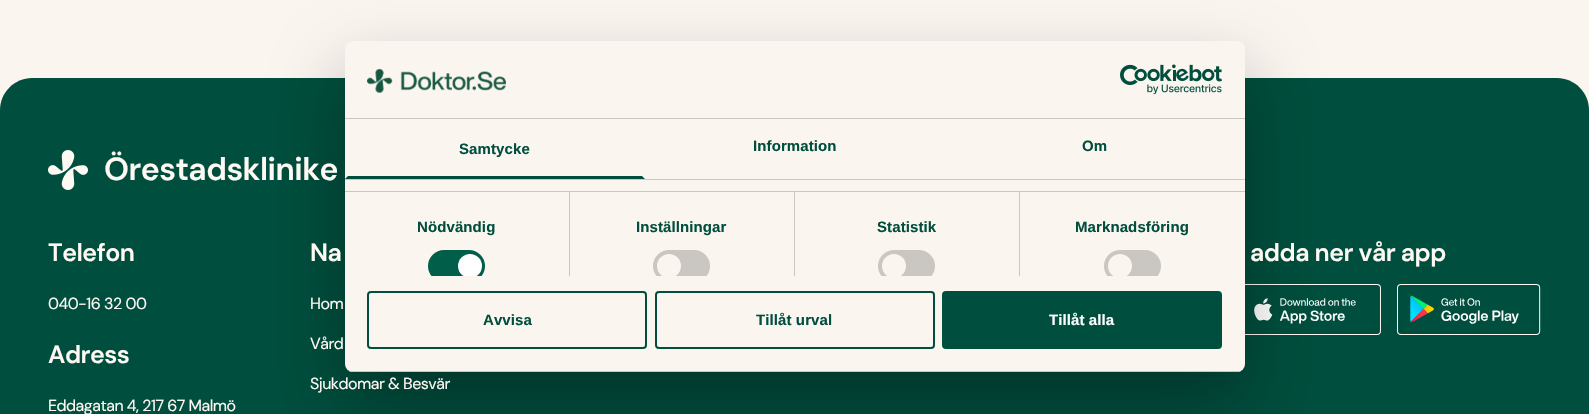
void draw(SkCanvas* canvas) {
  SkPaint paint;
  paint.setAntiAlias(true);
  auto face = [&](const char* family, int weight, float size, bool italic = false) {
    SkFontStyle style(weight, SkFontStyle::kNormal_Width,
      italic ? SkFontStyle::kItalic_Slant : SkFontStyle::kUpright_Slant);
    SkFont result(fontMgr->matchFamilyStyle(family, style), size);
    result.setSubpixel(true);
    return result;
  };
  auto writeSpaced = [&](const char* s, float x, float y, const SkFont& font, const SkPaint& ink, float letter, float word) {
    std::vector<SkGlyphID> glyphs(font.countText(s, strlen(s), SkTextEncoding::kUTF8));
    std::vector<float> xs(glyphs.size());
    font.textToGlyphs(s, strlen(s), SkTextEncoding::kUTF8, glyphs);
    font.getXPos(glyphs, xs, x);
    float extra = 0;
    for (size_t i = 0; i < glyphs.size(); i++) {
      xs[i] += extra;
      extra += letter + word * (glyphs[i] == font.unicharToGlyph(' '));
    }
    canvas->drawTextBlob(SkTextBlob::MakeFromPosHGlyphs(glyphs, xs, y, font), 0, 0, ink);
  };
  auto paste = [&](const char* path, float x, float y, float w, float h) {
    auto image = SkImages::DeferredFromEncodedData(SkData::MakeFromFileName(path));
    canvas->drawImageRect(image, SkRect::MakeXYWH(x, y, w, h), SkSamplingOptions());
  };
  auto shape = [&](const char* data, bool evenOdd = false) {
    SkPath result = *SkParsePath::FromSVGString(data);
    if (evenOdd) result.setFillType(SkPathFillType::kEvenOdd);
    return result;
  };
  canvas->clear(0xfffbf5f0);
  paint.setColor(0xff004e3d);
  canvas->drawPath(shape("M32 78H1557C1574.5 78 1589 92.5 1589 110V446H0V110C0 92.5 14.5 78 32 78Z"), paint);
  paste("img/4.png", 1245, 284, 136, 51);
  paint.setColor(0x4d000000);
  paint.setMaskFilter(SkMaskFilter::MakeBlur(kNormal_SkBlurStyle, 34));
  canvas->drawRoundRect(SkRect::MakeXYWH(345, 73, 900, 331), 8, 8, paint);
  paint.setMaskFilter(nullptr);
  paint.setColor(0xfffbf5f0);
  canvas->drawRoundRect(SkRect::MakeXYWH(345, 41, 900, 331), 8, 8, paint);
  paint.setColor(0xffcac6c1);
  canvas->drawRect(SkRect::MakeXYWH(345, 118, 900, 1), paint);
  paste("img/1.png", 367, 68, 139, 25);
  paste("img/2.png", 1120, 64, 102, 30);
  canvas->drawRect(SkRect::MakeXYWH(345, 179, 900, 1), paint);
  paint.setColor(0xff004e3d);
  canvas->drawPath(shape("M645 179H345L348 176H642Z"), paint);
  paint.setColor(0xffcac6c1);
  canvas->drawRect(SkRect::MakeXYWH(345, 191, 900, 1), paint);
  canvas->drawRect(SkRect::MakeXYWH(569, 192, 1, 84), paint);
  canvas->save();
  canvas->clipRect(SkRect::MakeXYWH(345, 180, 900, 96));
  paint.setColor(0xff005e49);
  canvas->drawRoundRect(SkRect::MakeXYWH(428, 250, 57, 32), 16, 16, paint);
  paint.setColor(0xffffffff);
  canvas->drawCircle(470, 266, 12, paint);
  canvas->restore();
  paint.setColor(0xffcac6c1);
  canvas->drawRect(SkRect::MakeXYWH(794, 192, 1, 84), paint);
  canvas->save();
  canvas->clipRect(SkRect::MakeXYWH(345, 180, 900, 96));
  canvas->drawRoundRect(SkRect::MakeXYWH(653, 250, 57, 32), 16, 16, paint);
  paint.setColor(0xfffbf5f0);
  canvas->drawCircle(669, 266, 12, paint);
  canvas->restore();
  paint.setColor(0xffcac6c1);
  canvas->drawRect(SkRect::MakeXYWH(1019, 192, 1, 84), paint);
  canvas->save();
  canvas->clipRect(SkRect::MakeXYWH(345, 180, 900, 96));
  canvas->drawRoundRect(SkRect::MakeXYWH(878, 250, 57, 32), 16, 16, paint);
  paint.setColor(0xfffbf5f0);
  canvas->drawCircle(894, 266, 12, paint);
  paint.setColor(0xffcac6c1);
  canvas->drawRoundRect(SkRect::MakeXYWH(1104, 250, 57, 32), 16, 16, paint);
  paint.setColor(0xfffbf5f0);
  canvas->drawCircle(1120, 266, 12, paint);
  canvas->restore();
  canvas->save();
  canvas->clipPath(shape("M353 41H1237C1241.5 41 1245 44.5 1245 49V364C1245 368.5 1241.5 372 1237 372H353C348.5 372 345 368.5 345 364V49C345 44.5 348.5 41 353 41Z"), true);
  paint.setColor(0xffcac6c1);
  canvas->drawRect(SkRect::MakeXYWH(345, 371, 900, 1), paint);
  canvas->restore();
  paint.setStroke(true);
  paint.setStrokeWidth(2);
  paint.setColor(0xff004e3d);
  canvas->drawRoundRect(SkRect::MakeXYWH(368, 292, 278, 56), 3, 3, paint);
  canvas->drawRoundRect(SkRect::MakeXYWH(656, 292, 278, 56), 3, 3, paint);
  paint.setStroke(false);
  canvas->drawRoundRect(SkRect::MakeXYWH(943, 292, 278, 56), 3, 3, paint);
  paint.setStroke(true);
  canvas->drawRoundRect(SkRect::MakeXYWH(943, 292, 278, 56), 3, 3, paint);
  paste("img/3.png", 48, 150, 40, 40);
  paste("img/5.png", 1397, 284, 144, 51);
  auto f0 = face("Liberation Sans", 700, 15);
  paint.setStroke(false);
  {
    const struct { const char* s; float x, y; } items[] = {
      {"Samtycke", 459, 154},
      {"Information", 753, 151},
      {"Om", 1082, 151},
      {"Nödvändig", 417, 232},
      {"Inställningar", 636, 232},
      {"Statistik", 877, 232},
      {"Marknadsföring", 1075, 232},
      {"Avvisa", 483, 325},
      {"Tillåt urval", 756, 325},
    };
    for (auto [s, x, y] : items) {
      writeSpaced(s, x, y, f0, paint, 0.1f, 0);
    }
  }
  paint.setColor(0xffffffff);
  writeSpaced("Tillåt alla", 1049, 325, f0, paint, 0.1f, 0);
  auto f1 = face("DM Sans", 600, 32);
  paint.setColor(0xfffff9f3);
  writeSpaced("Örestadsklinike", 104, 180, f1, paint, -0.5f, 0);
  auto f2 = face("DM Sans", 600, 25);
  writeSpaced("Telefon", 48, 261, f2, paint, -0.5f, 0);
  auto f3 = face("DM Sans", 400, 16);
  writeSpaced("040-16 32 00", 48, 309, f3, paint, -0.5f, 0);
  writeSpaced("Adress", 48, 363, f2, paint, -0.5f, 0);
  writeSpaced("Eddagatan 4, 217 67 Malmö", 48, 411, f3, paint, -0.5f, 0);
  writeSpaced("Na", 310, 261, f2, paint, -0.5f, 0);
  {
    const struct { const char* s; float x, y; } items[] = {
      {"Hom", 310, 309},
      {"Vård", 310, 349},
      {"Sjukdomar & Besvär", 310, 389},
    };
    for (auto [s, x, y] : items) {
      writeSpaced(s, x, y, f3, paint, -0.5f, 0);
    }
  }
  writeSpaced("adda ner vår app", 1250, 261, f2, paint, -0.5f, 0);
}
